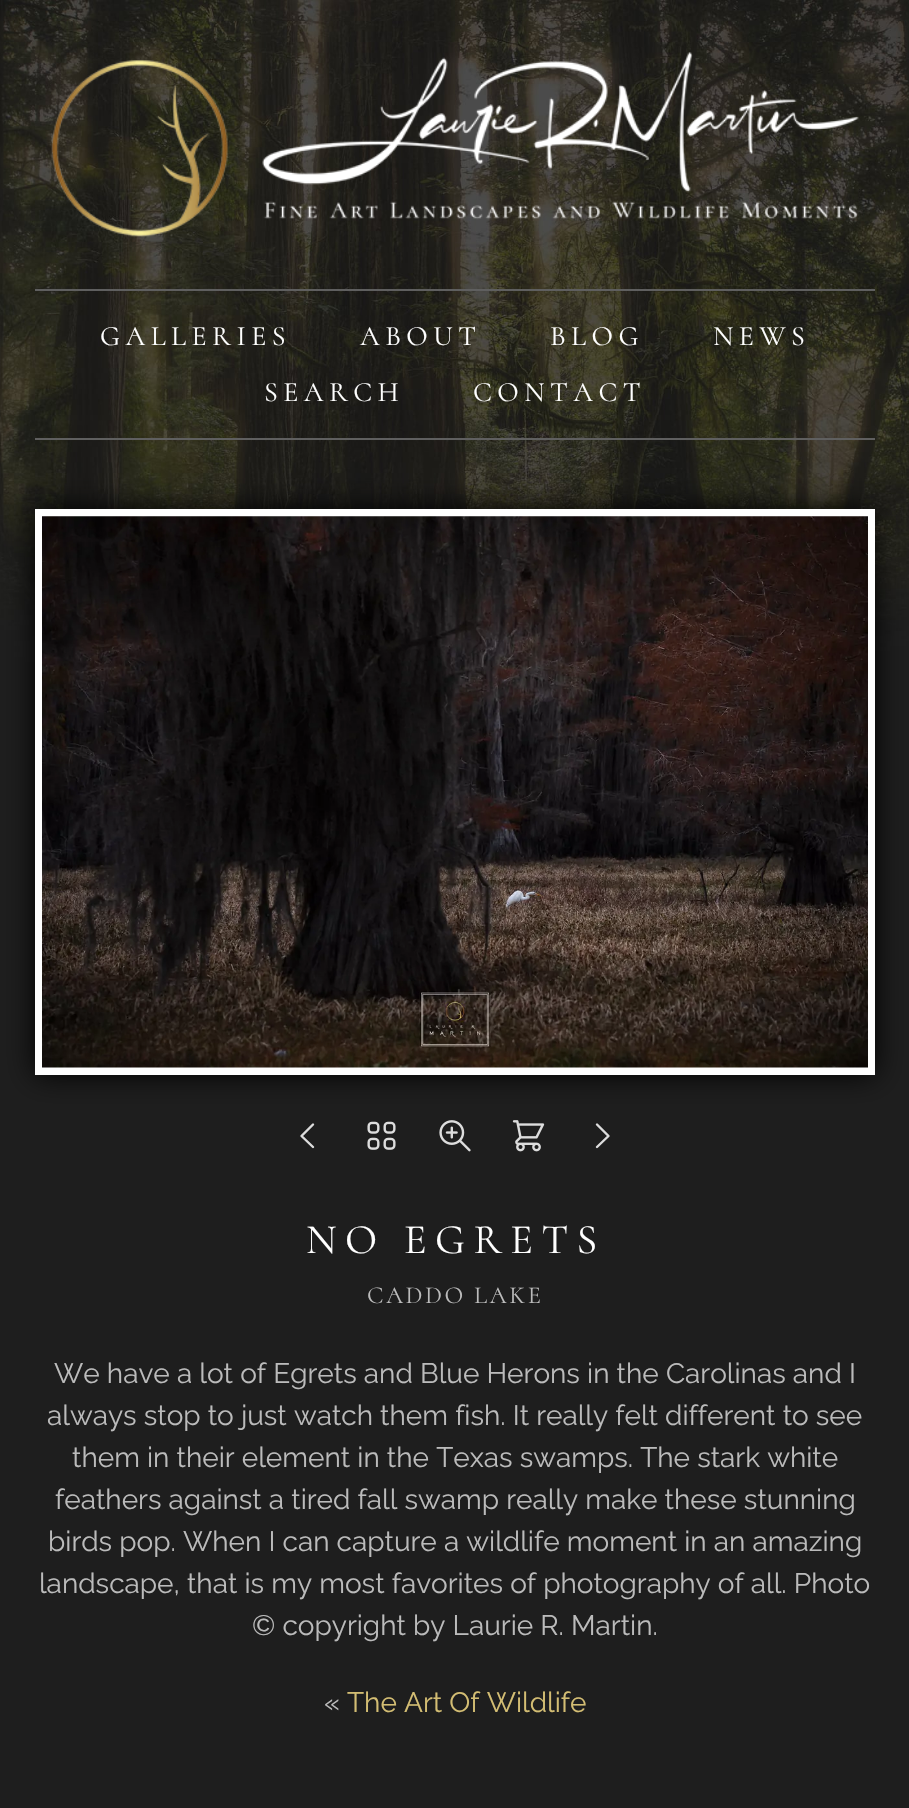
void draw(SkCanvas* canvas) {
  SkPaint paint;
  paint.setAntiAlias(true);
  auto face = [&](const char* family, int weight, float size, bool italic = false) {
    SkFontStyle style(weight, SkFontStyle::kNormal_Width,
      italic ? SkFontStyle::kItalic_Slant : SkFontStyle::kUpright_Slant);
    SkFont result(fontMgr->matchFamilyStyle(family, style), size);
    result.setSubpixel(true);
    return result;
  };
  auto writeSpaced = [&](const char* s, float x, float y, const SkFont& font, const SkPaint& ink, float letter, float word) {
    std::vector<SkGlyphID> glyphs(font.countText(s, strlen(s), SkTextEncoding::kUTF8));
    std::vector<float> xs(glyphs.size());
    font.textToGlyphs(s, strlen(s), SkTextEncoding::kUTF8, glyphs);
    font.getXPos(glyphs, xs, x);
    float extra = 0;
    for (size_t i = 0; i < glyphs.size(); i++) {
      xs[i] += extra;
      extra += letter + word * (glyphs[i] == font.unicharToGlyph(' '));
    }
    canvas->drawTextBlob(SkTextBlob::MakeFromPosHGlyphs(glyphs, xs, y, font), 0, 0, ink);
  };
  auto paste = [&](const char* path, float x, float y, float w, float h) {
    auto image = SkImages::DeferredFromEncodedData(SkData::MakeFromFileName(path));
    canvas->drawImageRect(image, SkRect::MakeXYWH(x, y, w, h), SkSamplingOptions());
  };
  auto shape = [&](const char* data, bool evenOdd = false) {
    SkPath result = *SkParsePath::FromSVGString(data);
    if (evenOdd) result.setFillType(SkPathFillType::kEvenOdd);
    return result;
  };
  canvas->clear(0xff1e1e1e);
  paste("img/1.png", 0, 0, 909, 663);
  paste("img/2.png", 51, 52, 808, 185);
  paint.setColor(0xff5f5f5f);
  canvas->drawRect(SkRect::MakeXYWH(35, 289, 840, 2), paint);
  canvas->drawRect(SkRect::MakeXYWH(35, 438, 840, 2), paint);
  paint.setColor(0xfc000000);
  paint.setMaskFilter(SkMaskFilter::MakeBlur(kNormal_SkBlurStyle, 14));
  canvas->drawRect(SkRect::MakeXYWH(35, 509, 840, 566), paint);
  paint.setMaskFilter(nullptr);
  paint.setColor(0xffffffff);
  canvas->drawRect(SkRect::MakeXYWH(35, 509, 840, 566), paint);
  paste("img/3.png", 42, 516, 826, 552);
  paint.setStroke(true);
  paint.setStrokeWidth(2.4f);
  paint.setStrokeCap(SkPaint::kRound_Cap);
  paint.setStrokeJoin(SkPaint::kRound_Join);
  paint.setColor(0xffdddddd);
  canvas->drawPath(shape("M313 1147L301.5 1136L313 1124.5"), paint);
  paste("img/4.png", 367, 1121, 29, 29);
  paste("img/5.png", 439, 1120, 32, 32);
  paste("img/6.png", 512, 1120, 33, 32);
  canvas->drawPath(shape("M597 1124.5L608.5 1136L597 1147"), paint);
  auto f0 = face("Cormorant SC", 400, 28);
  paint.setStroke(false);
  paint.setColor(0xffffffff);
  {
    const struct { const char* s; float x, y; } items[] = {
      {"GALLERIES", 100, 345},
      {"ABOUT", 360, 345},
      {"BLOG", 550, 345},
      {"NEWS", 713, 345},
      {"SEARCH", 264, 401},
      {"CONTACT", 473, 401},
    };
    for (auto [s, x, y] : items) {
      writeSpaced(s, x, y, f0, paint, 5.5f, 0);
    }
  }
  auto f1 = face("Cormorant SC", 400, 42);
  writeSpaced("NO EGRETS", 306, 1253, f1, paint, 8.5f, 0);
  auto f2 = face("Cormorant SC", 400, 24.5f);
  paint.setColor(0xffbbbbbb);
  writeSpaced("CADDO LAKE", 367, 1303, f2, paint, 2.5f, 0);
  auto f3 = face("Raleway", 400, 28);
  {
    const struct { const char* s; float x, y; } items[] = {
      {"We have a lot of Egrets and Blue Herons in the Carolinas and I", 54, 1383},
      {"always stop to just watch them fish. It really felt different to see", 47, 1425},
      {"them in their element in the Texas swamps. The stark white", 72, 1467},
      {"feathers against a tired fall swamp really make these stunning", 55, 1509},
      {"birds pop. When I can capture a wildlife moment in an amazing", 48, 1551},
      {"landscape, that is my most favorites of photography of all. Photo", 39, 1593},
      {"© copyright by Laurie R. Martin.", 252, 1635},
      {"«", 324, 1712},
    };
    for (auto [s, x, y] : items) {
      canvas->drawString(s, x, y, f3, paint);
    }
  }
  paint.setColor(0xffd3bd73);
  canvas->drawString("The Art Of Wildlife", 347, 1712, f3, paint);
}
